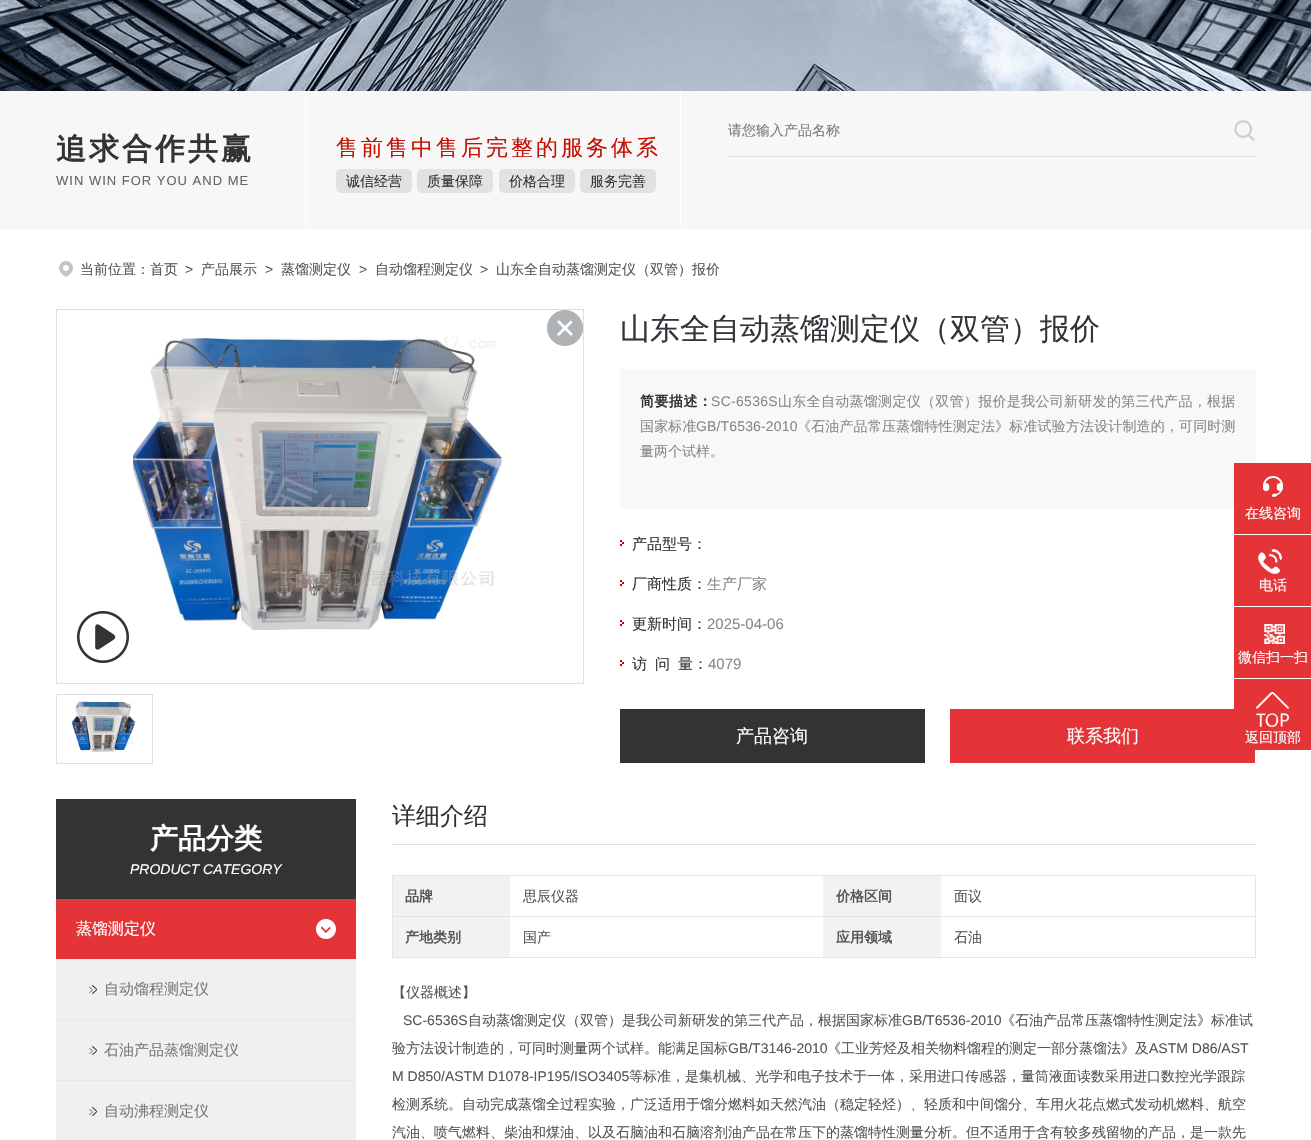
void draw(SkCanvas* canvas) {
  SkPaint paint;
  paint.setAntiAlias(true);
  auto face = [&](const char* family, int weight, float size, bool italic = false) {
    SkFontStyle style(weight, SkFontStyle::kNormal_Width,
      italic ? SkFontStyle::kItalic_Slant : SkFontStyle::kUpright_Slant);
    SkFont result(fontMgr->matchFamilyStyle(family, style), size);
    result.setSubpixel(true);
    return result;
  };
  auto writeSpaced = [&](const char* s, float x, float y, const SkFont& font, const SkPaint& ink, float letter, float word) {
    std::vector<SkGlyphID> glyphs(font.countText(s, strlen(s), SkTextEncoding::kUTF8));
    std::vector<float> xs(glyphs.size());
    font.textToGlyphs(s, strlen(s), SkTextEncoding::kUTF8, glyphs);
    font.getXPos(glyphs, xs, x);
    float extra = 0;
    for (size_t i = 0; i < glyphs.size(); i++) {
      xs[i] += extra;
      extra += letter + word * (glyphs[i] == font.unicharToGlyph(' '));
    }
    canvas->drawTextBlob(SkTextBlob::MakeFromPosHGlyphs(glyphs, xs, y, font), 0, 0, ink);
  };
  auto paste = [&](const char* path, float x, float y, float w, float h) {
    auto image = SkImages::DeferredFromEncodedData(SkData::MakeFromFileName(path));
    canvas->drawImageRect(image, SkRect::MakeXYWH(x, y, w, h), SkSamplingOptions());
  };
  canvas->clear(0xffffffff);
  paste("img/1.png", 0, 0, 1311, 91);
  paint.setColor(0xfff7f7f7);
  canvas->drawRect(SkRect::MakeXYWH(0, 91, 1311, 138), paint);
  paint.setColor(0xffdfdfdf);
  canvas->drawRect(SkRect::MakeXYWH(728, 156, 528, 1), paint);
  paste("img/2.png", 1234, 120, 21, 21);
  paint.setColor(0xffffffff);
  canvas->drawRect(SkRect::MakeXYWH(680, 91, 1, 136), paint);
  canvas->drawRect(SkRect::MakeXYWH(305, 91, 1, 135), paint);
  paint.setColor(0xffe2e2e2);
  canvas->drawRoundRect(SkRect::MakeXYWH(336, 169, 76, 24), 5, 5, paint);
  canvas->drawRoundRect(SkRect::MakeXYWH(417, 169, 76, 24), 5, 5, paint);
  canvas->drawRoundRect(SkRect::MakeXYWH(499, 169, 76, 24), 5, 5, paint);
  canvas->drawRoundRect(SkRect::MakeXYWH(580, 169, 76, 24), 5, 5, paint);
  paste("img/3.png", 59, 261, 14, 16);
  paint.setStroke(true);
  paint.setStrokeWidth(1);
  paint.setColor(0xffdfdfdf);
  canvas->drawRect(SkRect::MakeXYWH(56.5f, 309.5f, 527, 374), paint);
  paste("img/4.png", 547, 310, 36, 36);
  paste("img/5.png", 133, 336, 369, 294);
  paste("img/6.png", 77, 611, 52, 52);
  canvas->drawRect(SkRect::MakeXYWH(56.5f, 694.5f, 96, 69), paint);
  paste("img/7.png", 72, 701, 64, 51);
  paint.setStroke(false);
  paint.setColor(0xfff8f8f8);
  canvas->drawRect(SkRect::MakeXYWH(620, 369, 636, 140), paint);
  paste("img/8.png", 620, 540, 4, 6);
  paste("img/8.png", 620, 580, 4, 6);
  paste("img/8.png", 620, 620, 4, 6);
  paste("img/8.png", 620, 660, 4, 6);
  {
    const struct { float x, y, w, h; SkColor color; } items[] = {
      {620, 709, 305, 54, 0xff333333},
      {950, 709, 305, 54, 0xffe43437},
      {1234, 463, 77, 71, 0xffe43437},
    };
    for (auto [x, y, w, h, color] : items) {
      paint.setColor(color);
      canvas->drawRect(SkRect::MakeXYWH(x, y, w, h), paint);
    }
  }
  paste("img/9.png", 1263, 476, 20, 21);
  canvas->drawRect(SkRect::MakeXYWH(1234, 535, 77, 71), paint);
  paste("img/10.png", 1258, 549, 24, 25);
  canvas->drawRect(SkRect::MakeXYWH(1234, 607, 77, 71), paint);
  paste("img/11.png", 1264, 624, 21, 20);
  canvas->drawRect(SkRect::MakeXYWH(1234, 679, 77, 71), paint);
  paste("img/12.png", 1256, 692, 33, 35);
  {
    const struct { float x, y, w, h; SkColor color; } items[] = {
      {56, 799, 300, 100, 0xff333333},
      {56, 959, 300, 181, 0xfff0f0f0},
      {56, 899, 300, 60, 0xffe43437},
    };
    for (auto [x, y, w, h, color] : items) {
      paint.setColor(color);
      canvas->drawRect(SkRect::MakeXYWH(x, y, w, h), paint);
    }
  }
  paste("img/13.png", 316, 919, 20, 20);
  paste("img/14.png", 89, 985, 8, 9);
  paste("img/14.png", 89, 1046, 8, 9);
  paint.setColor(0xffe7e5e5);
  canvas->drawRect(SkRect::MakeXYWH(56, 1019, 300, 1), paint);
  paste("img/14.png", 89, 1107, 8, 9);
  {
    const struct { float x, y, w, h; SkColor color; } items[] = {
      {56, 1080, 300, 1, 0xffe7e5e5},
      {392, 844, 864, 1, 0xffdfdfdf},
      {392, 875, 864, 1, 0xffe6e5e5},
      {1255, 875, 1, 83, 0xffe6e5e5},
      {392, 875, 1, 83, 0xffe6e5e5},
      {393, 876, 117, 40, 0xfff2f2f2},
      {823, 876, 118, 40, 0xfff2f2f2},
      {392, 916, 864, 1, 0xffe6e5e5},
      {393, 917, 117, 40, 0xfff2f2f2},
      {823, 917, 118, 40, 0xfff2f2f2},
      {392, 957, 864, 1, 0xffe6e5e5},
    };
    for (auto [x, y, w, h, color] : items) {
      paint.setColor(color);
      canvas->drawRect(SkRect::MakeXYWH(x, y, w, h), paint);
    }
  }
  auto f0 = face("WenQuanYi Zen Hei", 500, 14);
  paint.setColor(0xff797979);
  canvas->drawString("请您输入产品名称", 728, 135, f0, paint);
  auto f1 = face("WenQuanYi Zen Hei", 700, 30);
  paint.setColor(0xff333333);
  writeSpaced("追求合作共赢", 56, 159, f1, paint, 3, 0);
  auto f2 = face("Liberation Sans", 400, 13);
  paint.setColor(0xff666666);
  writeSpaced("WIN WIN FOR YOU AND ME", 56, 185, f2, paint, 1, 0);
  auto f3 = face("WenQuanYi Zen Hei", 500, 22);
  paint.setColor(0xffc51003);
  writeSpaced("售前售中售后完整的服务体系", 336, 155, f3, paint, 3, 0);
  paint.setColor(0xff333333);
  {
    const struct { const char* s; float x, y; } items[] = {
      {"诚信经营", 346, 186},
      {"质量保障", 427, 186},
      {"价格合理", 509, 186},
      {"服务完善", 590, 186},
    };
    for (auto [s, x, y] : items) {
      canvas->drawString(s, x, y, f0, paint);
    }
  }
  paint.setColor(0xff555555);
  canvas->drawString("当前位置：首页", 80, 274, f0, paint);
  auto f4 = face("Liberation Sans", 400, 14);
  canvas->drawString(">", 185, 274, f4, paint);
  canvas->drawString("产品展示", 201, 274, f0, paint);
  canvas->drawString(">", 265, 274, f4, paint);
  canvas->drawString("蒸馏测定仪", 281, 274, f0, paint);
  canvas->drawString(">", 359, 274, f4, paint);
  canvas->drawString("自动馏程测定仪", 375, 274, f0, paint);
  canvas->drawString(">", 480, 274, f4, paint);
  canvas->drawString("山东全自动蒸馏测定仪（双管）报价", 496, 274, f0, paint);
  auto f5 = face("WenQuanYi Zen Hei", 500, 30);
  paint.setColor(0xff32353a);
  canvas->drawString("山东全自动蒸馏测定仪（双管）报价", 620, 339, f5, paint);
  auto f6 = face("WenQuanYi Zen Hei", 700, 14);
  paint.setColor(0xff333333);
  writeSpaced("简要描述：", 640, 406, f6, paint, 0.5f, 0);
  paint.setColor(0xff888888);
  writeSpaced("SC-6536S", 711, 406, f4, paint, 0.3f, 0);
  writeSpaced("山东全自动蒸馏测定仪（双管）报价是我公司新研发的第三代产品，根据", 778, 406, f0, paint, 0.3f, 0);
  writeSpaced("国家标准", 640, 431, f0, paint, 0.15f, 0);
  writeSpaced("GB/T6536-2010", 696, 431, f4, paint, 0.15f, 0);
  writeSpaced("《石油产品常压蒸馏特性测定法》标准试验方法设计制造的，可同时测", 797, 431, f0, paint, 0.15f, 0);
  canvas->drawString("量两个试样。", 640, 456, f0, paint);
  auto f7 = face("WenQuanYi Zen Hei", 500, 15);
  paint.setColor(0xff333333);
  canvas->drawString("产品型号：", 632, 549, f7, paint);
  canvas->drawString("厂商性质：", 632, 589, f7, paint);
  paint.setColor(0xff888888);
  canvas->drawString("生产厂家", 707, 589, f7, paint);
  paint.setColor(0xff333333);
  canvas->drawString("更新时间：", 632, 629, f7, paint);
  auto f8 = face("Liberation Sans", 400, 15);
  paint.setColor(0xff888888);
  canvas->drawString("2025-04-06", 707, 629, f8, paint);
  paint.setColor(0xff333333);
  {
    const struct { const char* s; float x, y; } items[] = {
      {"访", 632, 669},
      {"问", 655, 669},
      {"量：", 678, 669},
    };
    for (auto [s, x, y] : items) {
      canvas->drawString(s, x, y, f7, paint);
    }
  }
  paint.setColor(0xff888888);
  canvas->drawString("4079", 708, 669, f8, paint);
  auto f9 = face("WenQuanYi Zen Hei", 500, 18);
  paint.setColor(0xffffffff);
  canvas->drawString("产品咨询", 736, 742, f9, paint);
  canvas->drawString("联系我们", 1067, 742, f9, paint);
  {
    const struct { const char* s; float x, y; } items[] = {
      {"在线咨询", 1245, 518},
      {"电话", 1259, 590},
      {"微信扫一扫", 1238, 662},
      {"返回顶部", 1245, 742},
    };
    for (auto [s, x, y] : items) {
      canvas->drawString(s, x, y, f0, paint);
    }
  }
  auto f10 = face("WenQuanYi Zen Hei", 700, 28);
  canvas->drawString("产品分类", 150, 848, f10, paint);
  auto f11 = face("Liberation Sans", 400, 14, true);
  canvas->drawString("PRODUCT CATEGORY", 130, 874, f11, paint);
  auto f12 = face("WenQuanYi Zen Hei", 500, 16);
  canvas->drawString("蒸馏测定仪", 76, 934, f12, paint);
  paint.setColor(0xff797979);
  {
    const struct { const char* s; float x, y; } items[] = {
      {"自动馏程测定仪", 104, 994},
      {"石油产品蒸馏测定仪", 104, 1055},
      {"自动沸程测定仪", 104, 1116},
    };
    for (auto [s, x, y] : items) {
      canvas->drawString(s, x, y, f7, paint);
    }
  }
  auto f13 = face("WenQuanYi Zen Hei", 500, 24);
  paint.setColor(0xff333333);
  canvas->drawString("详细介绍", 392, 824, f13, paint);
  paint.setColor(0xff555555);
  canvas->drawString("品牌", 405, 901, f6, paint);
  canvas->drawString("思辰仪器", 523, 901, f0, paint);
  canvas->drawString("价格区间", 836, 901, f6, paint);
  canvas->drawString("面议", 954, 901, f0, paint);
  canvas->drawString("产地类别", 405, 942, f6, paint);
  canvas->drawString("国产", 523, 942, f0, paint);
  canvas->drawString("应用领域", 836, 942, f6, paint);
  canvas->drawString("石油", 954, 942, f0, paint);
  canvas->drawString("【仪器概述】", 392, 997, f0, paint);
  canvas->drawString("SC-6536S", 403, 1025, f4, paint);
  canvas->drawString("自动蒸馏测定仪（双管）是我公司新研发的第三代产品，根据国家标准", 468, 1025, f0, paint);
  canvas->drawString("GB/T6536-2010", 902, 1025, f4, paint);
  canvas->drawString("《石油产品常压蒸馏特性测定法》标准试", 1001, 1025, f0, paint);
  canvas->save();
  canvas->clipRect(SkRect::MakeXYWH(392, 978, 864, 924));
  canvas->drawString("验方法设计制造的，可同时测量两个试样。能满足国标", 392, 1053, f0, paint);
  canvas->restore();
  canvas->drawString("GB/T3146-2010", 728, 1053, f4, paint);
  canvas->drawString("《工业芳烃及相关物料馏程的测定一部分蒸馏法》及", 827, 1053, f0, paint);
  canvas->drawString("ASTM D86/AST", 1149, 1053, f4, paint);
  canvas->drawString("M D850/ASTM D1078-IP195/ISO3405", 392, 1081, f4, paint);
  {
    const struct { const char* s; float x, y; } items[] = {
      {"等标准，是集机械、光学和电子技术于一体，采用进口传感器，量筒液面读数采用进口数控光学跟踪", 629, 1081},
      {"检测系统。自动完成蒸馏全过程实验，广泛适用于馏分燃料如天然汽油（稳定轻烃）、轻质和中间馏分、车用火花点燃式发动机燃料、航空", 392, 1109},
      {"汽油、喷气燃料、柴油和煤油、以及石脑油和石脑溶剂油产品在常压下的蒸馏特性测量分析。但不适用于含有较多残留物的产品，是一款先", 392, 1137},
    };
    for (auto [s, x, y] : items) {
      canvas->drawString(s, x, y, f0, paint);
    }
  }
}
